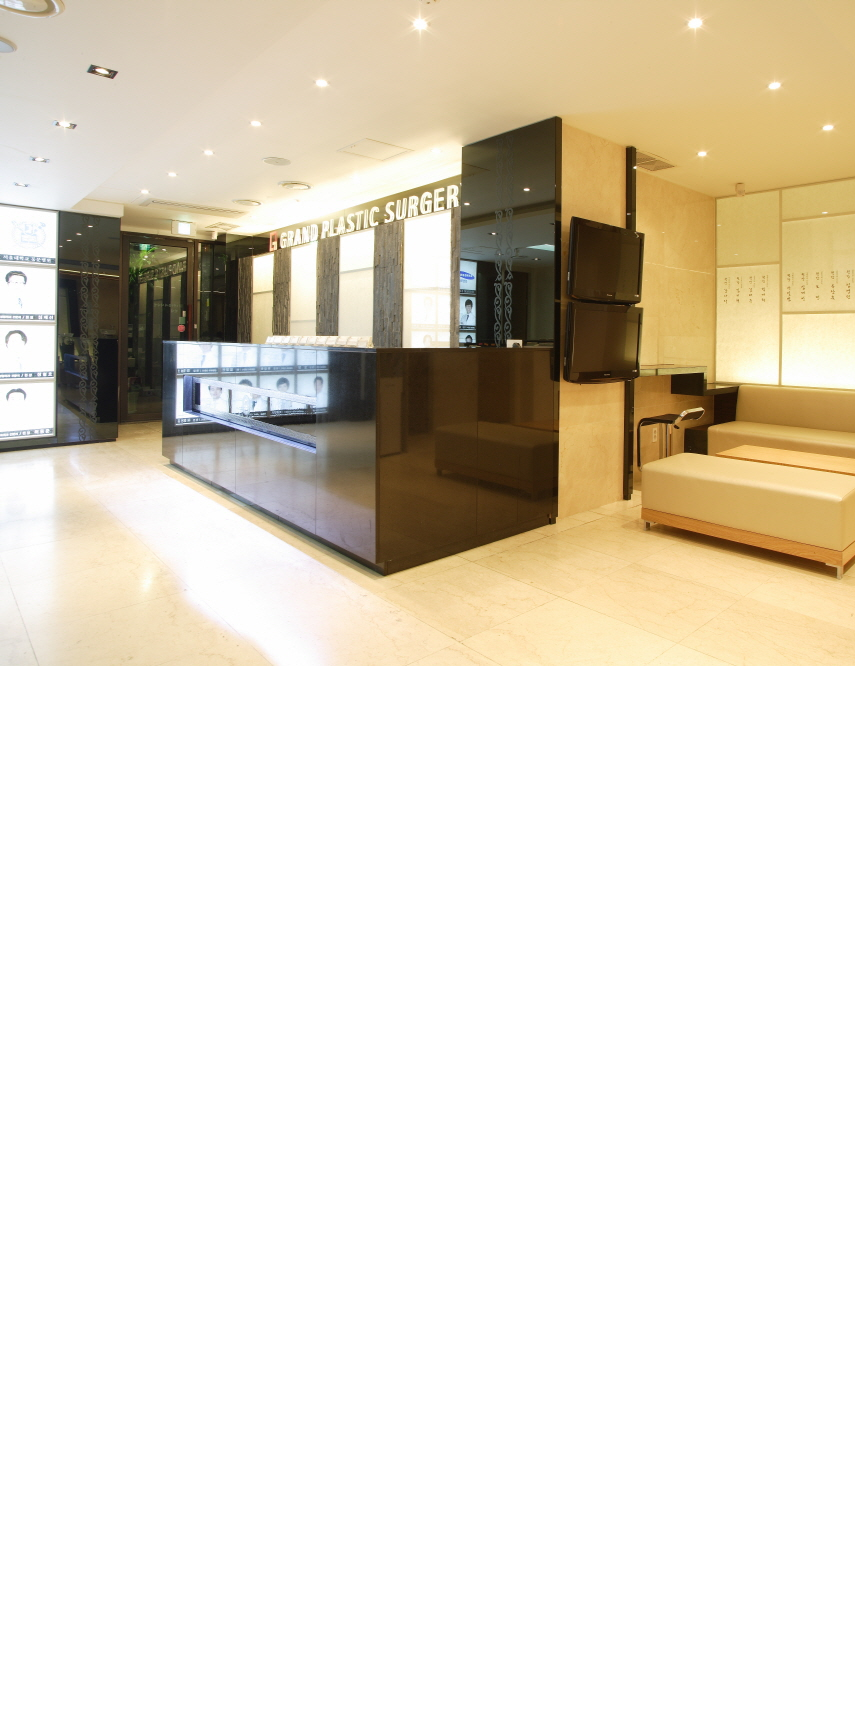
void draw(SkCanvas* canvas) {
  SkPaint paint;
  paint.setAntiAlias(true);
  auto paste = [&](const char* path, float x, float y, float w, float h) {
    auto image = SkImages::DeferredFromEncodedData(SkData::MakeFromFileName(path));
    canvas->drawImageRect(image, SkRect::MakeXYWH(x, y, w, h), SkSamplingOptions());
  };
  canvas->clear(0xffffffff);
  paste("img/1.png", 0, 0, 855, 666);
}
